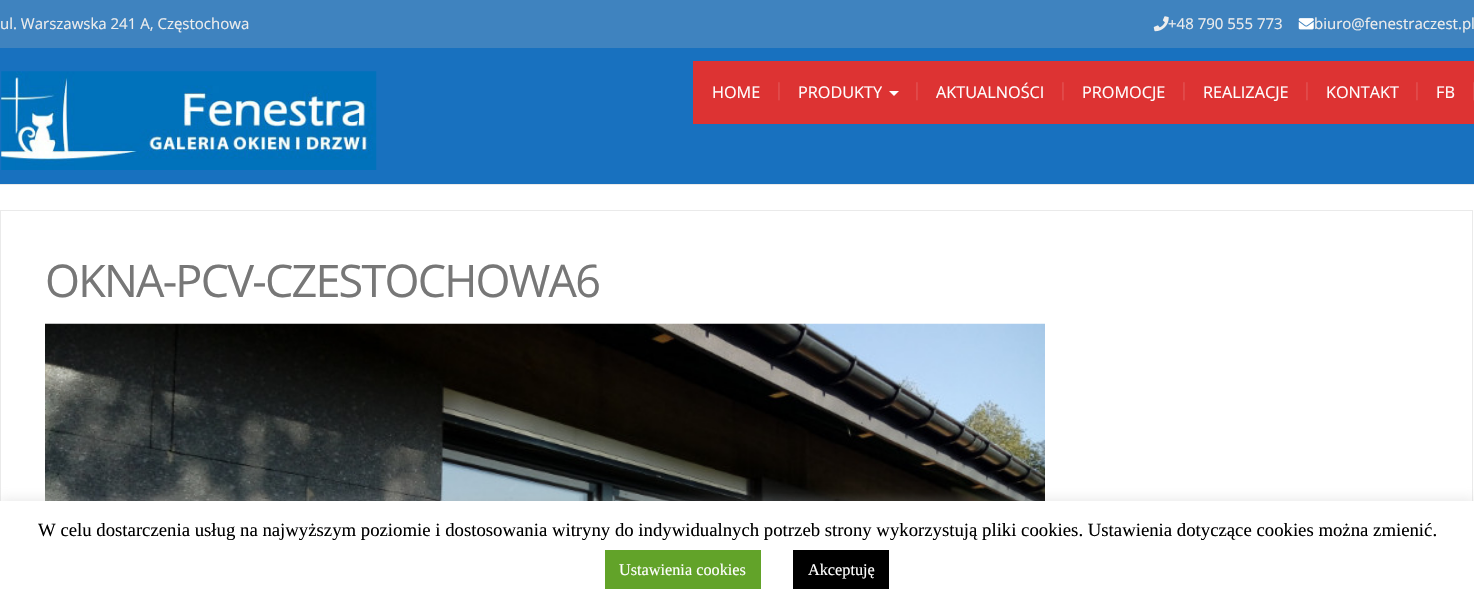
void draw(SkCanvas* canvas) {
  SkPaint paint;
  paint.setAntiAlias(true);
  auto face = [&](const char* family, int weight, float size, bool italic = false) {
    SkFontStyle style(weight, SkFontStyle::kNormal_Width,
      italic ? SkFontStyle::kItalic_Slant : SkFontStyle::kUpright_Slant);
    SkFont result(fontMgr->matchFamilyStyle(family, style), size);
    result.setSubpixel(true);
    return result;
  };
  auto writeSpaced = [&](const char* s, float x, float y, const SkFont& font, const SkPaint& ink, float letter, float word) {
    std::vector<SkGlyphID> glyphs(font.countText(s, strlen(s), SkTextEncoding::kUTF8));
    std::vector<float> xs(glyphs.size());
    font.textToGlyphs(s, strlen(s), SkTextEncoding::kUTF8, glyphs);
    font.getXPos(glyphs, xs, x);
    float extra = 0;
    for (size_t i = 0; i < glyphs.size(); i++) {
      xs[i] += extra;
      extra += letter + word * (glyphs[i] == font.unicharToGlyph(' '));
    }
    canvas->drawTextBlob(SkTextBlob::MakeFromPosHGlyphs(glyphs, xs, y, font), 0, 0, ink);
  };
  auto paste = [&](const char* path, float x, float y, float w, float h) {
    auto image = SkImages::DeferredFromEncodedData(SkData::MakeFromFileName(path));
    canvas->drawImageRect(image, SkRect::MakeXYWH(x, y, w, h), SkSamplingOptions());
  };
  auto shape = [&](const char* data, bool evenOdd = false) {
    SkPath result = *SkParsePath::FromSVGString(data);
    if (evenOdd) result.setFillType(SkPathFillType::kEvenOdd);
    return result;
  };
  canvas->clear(0xffffffff);
  paint.setColor(0xff3f83bf);
  canvas->drawRect(SkRect::MakeXYWH(0, 0, 1474, 48), paint);
  paste("img/2.png", 1298, 18, 16, 12);
  paint.setColor(0xff1871bf);
  canvas->drawRect(SkRect::MakeXYWH(0, 48, 1474, 136), paint);
  paint.setColor(0xffeaeaea);
  canvas->drawRect(SkRect::MakeXYWH(0, 184, 1474, 1), paint);
  paste("img/3.png", 1, 71, 376, 99);
  paint.setColor(0xffdd3333);
  canvas->drawRect(SkRect::MakeXYWH(693, 61, 781, 63), paint);
  paint.setColor(0xffffffff);
  canvas->drawPath(shape("M889 91H899L894 96Z"), paint);
  paint.setStroke(true);
  paint.setStrokeWidth(1);
  paint.setColor(0xffeaeaea);
  canvas->drawRect(SkRect::MakeXYWH(0.5f, 210.5f, 1472, 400), paint);
  paste("img/4.png", 45, 323, 1000, 178);
  paint.setStroke(false);
  paint.setColor(0x4dacabab);
  paint.setMaskFilter(SkMaskFilter::MakeBlur(kNormal_SkBlurStyle, 6));
  canvas->drawRect(SkRect::MakeXYWH(0, 500, 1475, 109), paint);
  paint.setMaskFilter(nullptr);
  {
    const struct { float x, y, w, h; SkColor color; } items[] = {
      {0, 501, 1474, 109, 0xffffffff},
      {605, 550, 156, 39, 0xff62a329},
      {793, 550, 96, 39, 0xff000000},
    };
    for (auto [x, y, w, h, color] : items) {
      paint.setColor(color);
      canvas->drawRect(SkRect::MakeXYWH(x, y, w, h), paint);
    }
  }
  auto f0 = face("Open Sans", 400, 15);
  paint.setColor(0xffededed);
  canvas->drawString("ul. Warszawska 241 A, Częstochowa", 0, 29, f0, paint);
  canvas->drawString("+48 790 555 773", 1168, 29, f0, paint);
  paste("img/1.png", 1153, 16, 16, 16);
  canvas->drawString("biuro@fenestraczest.pl", 1314, 29, f0, paint);
  auto f1 = face("Open Sans", 400, 16.25f);
  paint.setColor(0xffffffff);
  canvas->drawString("HOME", 712, 98, f1, paint);
  auto f2 = face("Open Sans", 400, 18);
  paint.setColor(0xffe25252);
  canvas->drawString("|", 774, 96, f2, paint);
  paint.setColor(0xffffffff);
  canvas->drawString("PRODUKTY", 798, 98, f1, paint);
  paint.setColor(0xffe25252);
  canvas->drawString("|", 912, 96, f2, paint);
  paint.setColor(0xffffffff);
  canvas->drawString("AKTUALNOŚCI", 936, 98, f1, paint);
  paint.setColor(0xffe25252);
  canvas->drawString("|", 1058, 96, f2, paint);
  paint.setColor(0xffffffff);
  canvas->drawString("PROMOCJE", 1082, 98, f1, paint);
  paint.setColor(0xffe25252);
  canvas->drawString("|", 1179, 96, f2, paint);
  paint.setColor(0xffffffff);
  canvas->drawString("REALIZACJE", 1203, 98, f1, paint);
  paint.setColor(0xffe25252);
  canvas->drawString("|", 1302, 96, f2, paint);
  paint.setColor(0xffffffff);
  canvas->drawString("KONTAKT", 1326, 98, f1, paint);
  paint.setColor(0xffe25252);
  canvas->drawString("|", 1412, 96, f2, paint);
  paint.setColor(0xffffffff);
  canvas->drawString("FB", 1436, 98, f1, paint);
  paint.setColor(0xffe25252);
  canvas->drawString("|", 1469, 96, f2, paint);
  auto f3 = face("Open Sans", 400, 45);
  paint.setColor(0xff777777);
  writeSpaced("OKNA-PCV-CZESTOCHOWA6", 45, 297, f3, paint, -1.8f, 0);
  auto f4 = face("Liberation Serif", 400, 18.75f);
  paint.setColor(0xff000000);
  canvas->drawString("W celu dostarczenia usług na najwyższym poziomie i dostosowania witryny do indywidualnych potrzeb strony wykorzystują pliki cookies. Ustawienia dotyczące cookies można zmienić.", 38, 536, f4, paint);
  auto f5 = face("Liberation Serif", 400, 16.25f);
  paint.setColor(0xffffffff);
  canvas->drawString("Ustawienia cookies", 619, 575, f5, paint);
  canvas->drawString("Akceptuję", 808, 575, f5, paint);
}
